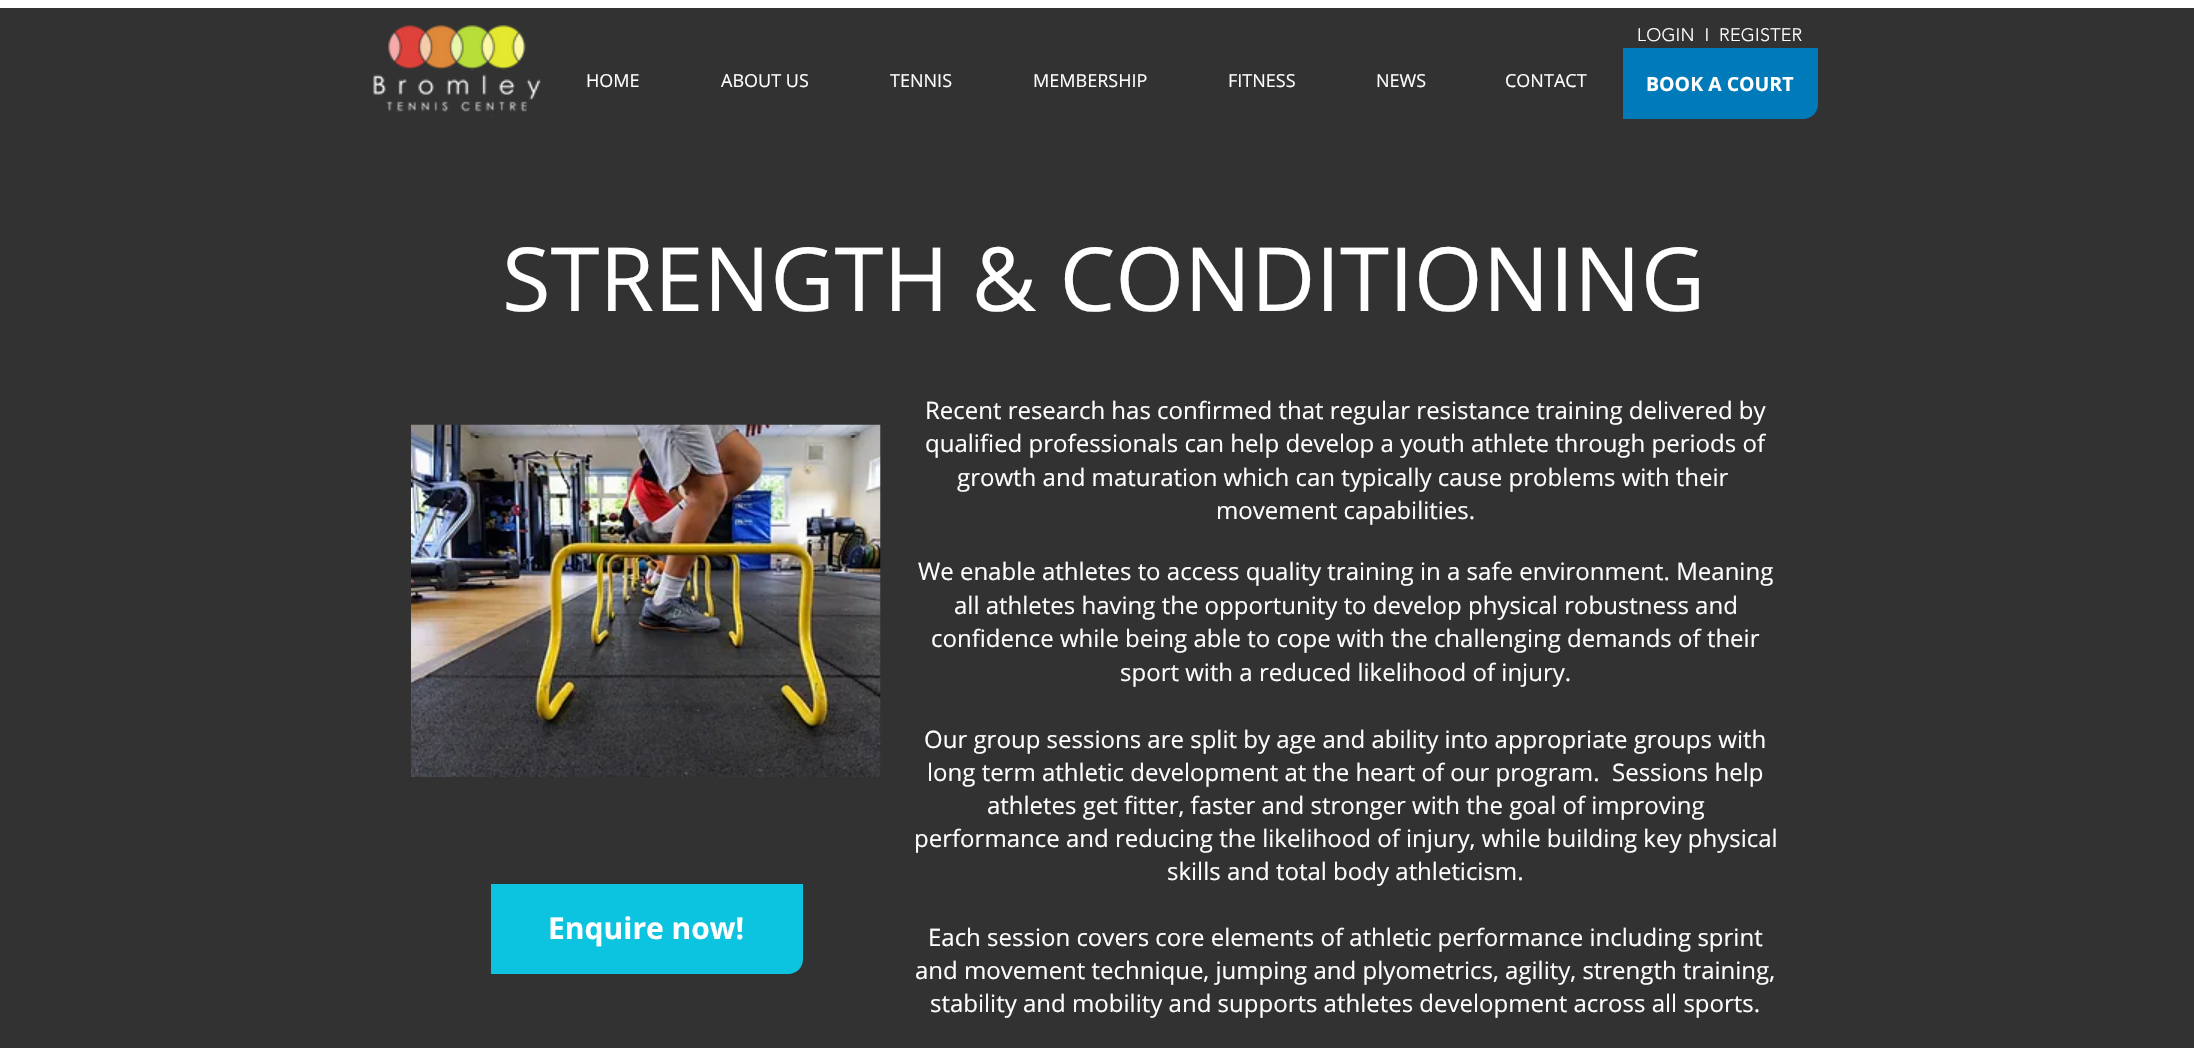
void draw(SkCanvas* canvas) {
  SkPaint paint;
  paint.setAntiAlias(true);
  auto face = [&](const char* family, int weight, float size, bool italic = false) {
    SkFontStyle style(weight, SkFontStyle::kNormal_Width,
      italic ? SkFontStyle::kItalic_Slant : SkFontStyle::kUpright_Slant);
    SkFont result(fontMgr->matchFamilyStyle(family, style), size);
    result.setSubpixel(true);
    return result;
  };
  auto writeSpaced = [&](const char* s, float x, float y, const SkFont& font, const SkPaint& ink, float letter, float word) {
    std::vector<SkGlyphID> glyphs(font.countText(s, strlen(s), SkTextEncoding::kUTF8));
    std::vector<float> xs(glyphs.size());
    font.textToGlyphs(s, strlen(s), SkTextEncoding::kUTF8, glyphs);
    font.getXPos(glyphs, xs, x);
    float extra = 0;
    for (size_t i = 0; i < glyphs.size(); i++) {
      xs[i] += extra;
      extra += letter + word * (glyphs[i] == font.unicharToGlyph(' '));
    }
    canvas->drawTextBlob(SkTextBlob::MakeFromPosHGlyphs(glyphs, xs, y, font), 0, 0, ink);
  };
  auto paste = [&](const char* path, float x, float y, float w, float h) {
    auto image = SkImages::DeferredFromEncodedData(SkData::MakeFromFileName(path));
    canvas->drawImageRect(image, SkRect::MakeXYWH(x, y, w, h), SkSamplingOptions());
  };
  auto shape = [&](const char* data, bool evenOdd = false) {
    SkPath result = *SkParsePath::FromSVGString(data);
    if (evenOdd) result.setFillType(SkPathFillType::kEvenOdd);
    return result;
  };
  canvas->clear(0xff323232);
  paint.setColor(0xffffffff);
  canvas->drawRect(SkRect::MakeXYWH(0, 0, 2194, 8), paint);
  paste("img/1.png", 373, 25, 168, 92);
  paint.setColor(0xff007ab8);
  canvas->drawPath(shape("M1623 48H1818V104C1818 112.5 1811.5 119 1803 119H1623Z"), paint);
  paste("img/2.png", 411, 424, 470, 353);
  paint.setColor(0xff0dc4e0);
  canvas->drawPath(shape("M491 884H803V959C803 967.5 796.5 974 788 974H491Z"), paint);
  auto f0 = face("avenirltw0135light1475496", 300, 18);
  paint.setColor(0xffffffff);
  writeSpaced("LOGIN  I  REGISTER", 1637, 41, f0, paint, 0.2f, 0);
  auto f1 = face("Open Sans", 400, 18);
  {
    const struct { const char* s; float x, y; } items[] = {
      {"HOME", 586, 87},
      {"ABOUT US", 721, 87},
      {"TENNIS", 890, 87},
      {"MEMBERSHIP", 1033, 87},
      {"FITNESS", 1228, 87},
      {"NEWS", 1376, 87},
      {"CONTACT", 1505, 87},
    };
    for (auto [s, x, y] : items) {
      canvas->drawString(s, x, y, f1, paint);
    }
  }
  auto f2 = face("Open Sans", 700, 19.5f);
  canvas->drawString("BOOK A COURT", 1646, 91, f2, paint);
  auto f3 = face("Open Sans", 400, 88.5f);
  canvas->drawString("STRENGTH & CONDITIONING", 502, 311, f3, paint);
  auto f4 = face("Open Sans", 400, 24);
  {
    const struct { const char* s; float x, y; } items[] = {
      {"Recent research has confirmed that regular resistance training delivered by", 925, 419},
      {"qualified professionals can help develop a youth athlete through periods of", 925, 452},
      {"growth and maturation which can typically cause problems with their", 957, 486},
      {"movement capabilities.", 1216, 519},
      {"We enable athletes to access quality training in a safe environment. Meaning", 918, 580},
      {"all athletes having the opportunity to develop physical robustness and", 954, 614},
      {"confidence while being able to cope with the challenging demands of their", 931, 647},
      {"sport with a reduced likelihood of injury.", 1120, 681},
      {"Our group sessions are split by age and ability into appropriate groups with", 924, 748},
      {"long term athletic development at the heart of our program.", 927, 781},
      {"Sessions help", 1612, 781},
      {"athletes get fitter, faster and stronger with the goal of improving", 987, 814},
      {"performance and reducing the likelihood of injury, while building key physical", 914, 847},
      {"skills and total body athleticism.", 1167, 880},
      {"Each session covers core elements of athletic performance including sprint", 928, 946},
      {"and movement technique, jumping and plyometrics, agility, strength training,", 915, 979},
      {"stability and mobility and supports athletes development across all sports.", 930, 1012},
    };
    for (auto [s, x, y] : items) {
      canvas->drawString(s, x, y, f4, paint);
    }
  }
  auto f5 = face("Open Sans", 700, 30);
  canvas->drawString("Enquire now!", 548, 939, f5, paint);
}
